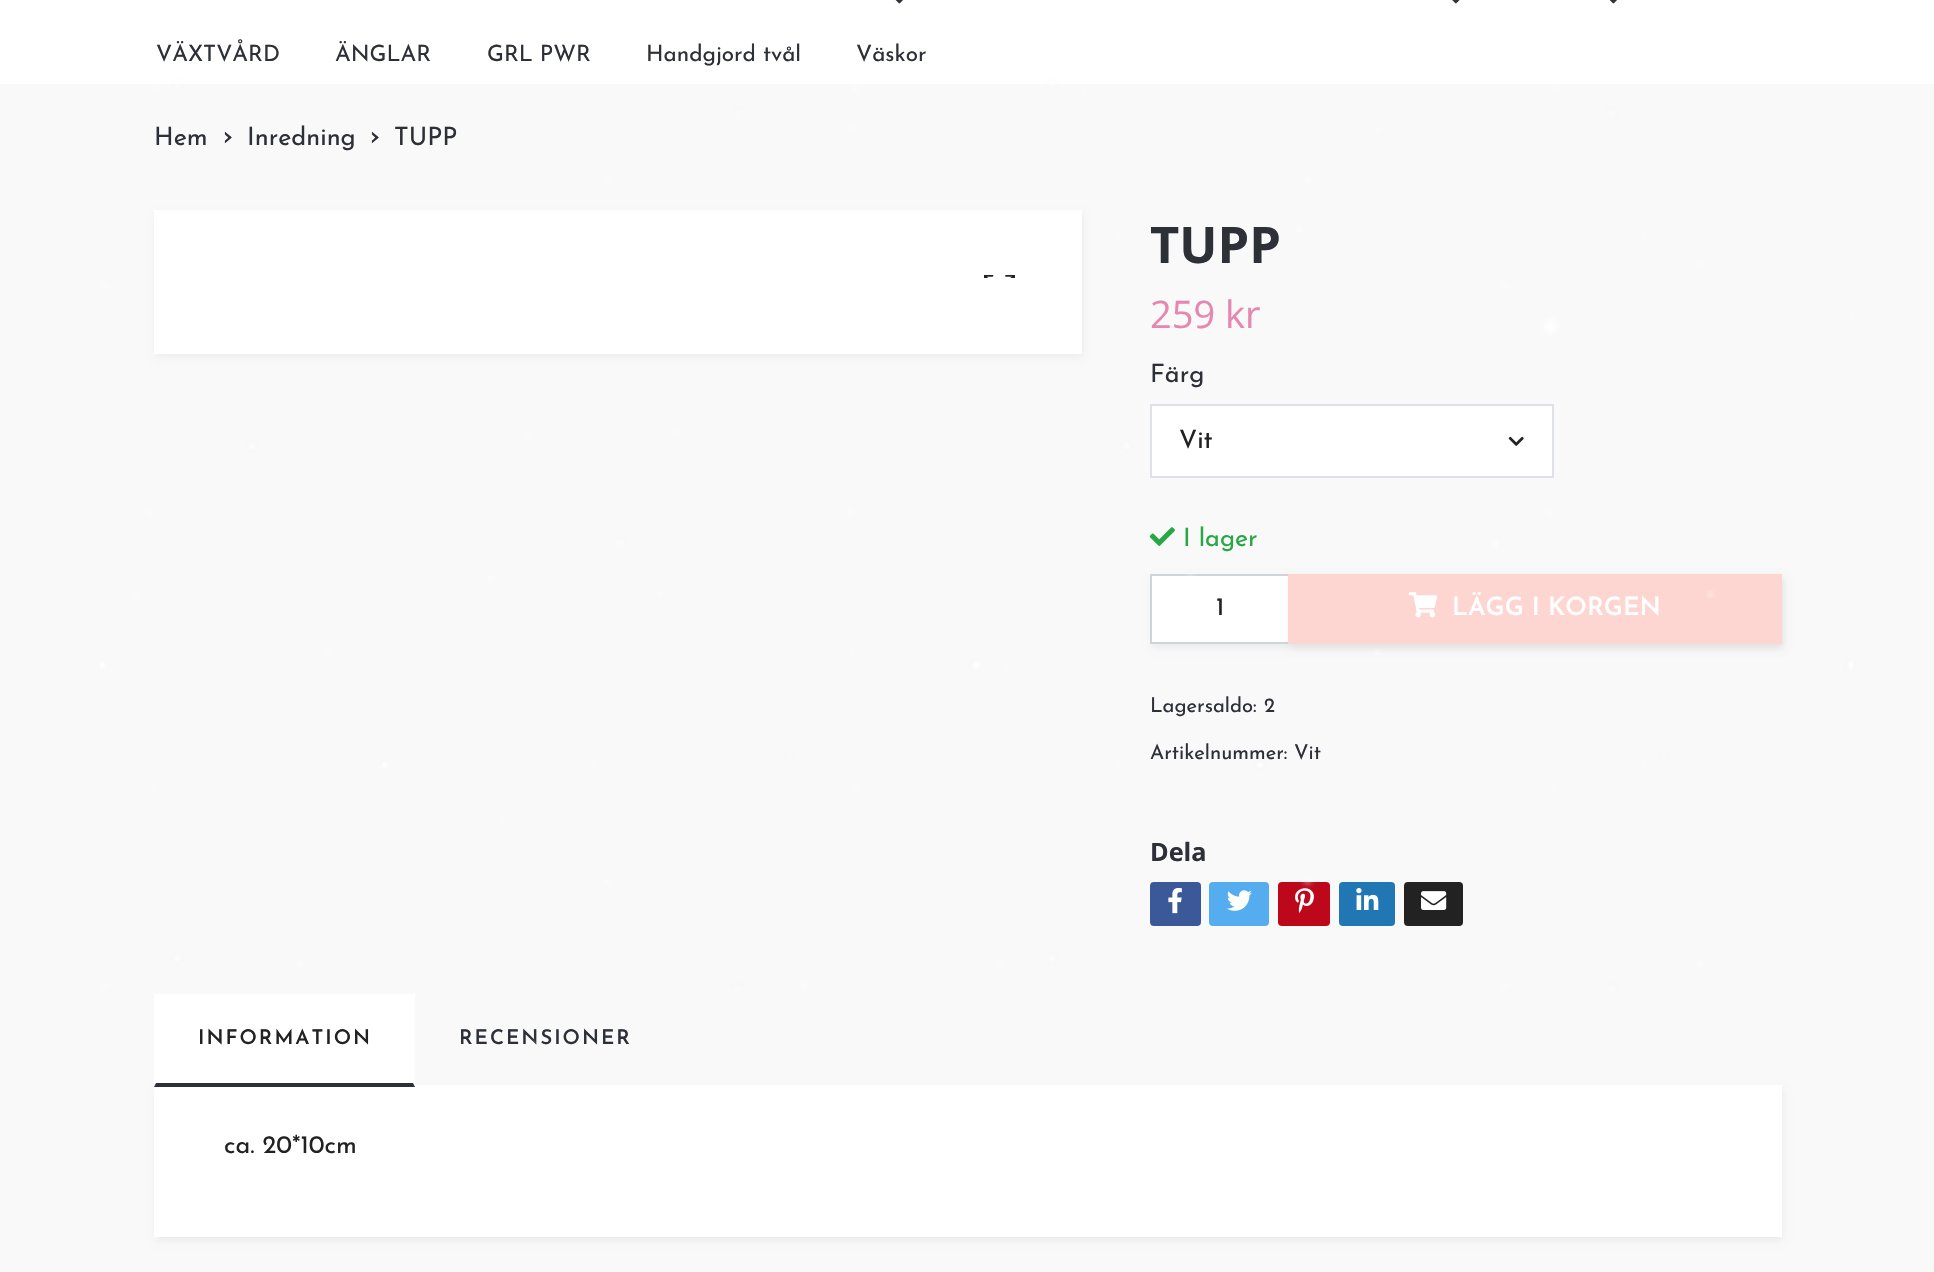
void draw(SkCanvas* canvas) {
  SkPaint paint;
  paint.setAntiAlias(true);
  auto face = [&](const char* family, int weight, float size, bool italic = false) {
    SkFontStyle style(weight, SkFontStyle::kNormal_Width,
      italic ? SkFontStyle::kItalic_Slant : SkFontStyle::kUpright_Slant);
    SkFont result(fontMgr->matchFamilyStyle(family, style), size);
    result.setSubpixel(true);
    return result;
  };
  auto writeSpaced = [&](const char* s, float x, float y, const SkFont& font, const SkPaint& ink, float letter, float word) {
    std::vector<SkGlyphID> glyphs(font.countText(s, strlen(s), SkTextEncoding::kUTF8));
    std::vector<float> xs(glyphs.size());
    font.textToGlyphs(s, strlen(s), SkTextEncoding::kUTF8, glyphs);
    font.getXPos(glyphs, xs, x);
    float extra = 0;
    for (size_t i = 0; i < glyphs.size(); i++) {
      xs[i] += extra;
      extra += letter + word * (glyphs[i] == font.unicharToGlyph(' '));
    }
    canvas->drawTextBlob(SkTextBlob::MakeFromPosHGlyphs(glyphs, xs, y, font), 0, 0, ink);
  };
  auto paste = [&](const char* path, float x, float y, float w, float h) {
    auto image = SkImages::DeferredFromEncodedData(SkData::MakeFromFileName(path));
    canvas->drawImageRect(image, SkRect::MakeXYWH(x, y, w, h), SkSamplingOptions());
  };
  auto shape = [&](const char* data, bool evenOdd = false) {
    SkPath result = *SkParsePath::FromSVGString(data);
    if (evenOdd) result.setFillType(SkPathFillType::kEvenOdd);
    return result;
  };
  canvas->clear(0xfff9f9fa);
  paint.setColor(0xffffffff);
  canvas->drawRect(SkRect::MakeXYWH(0, 0, 1934, 84), paint);
  paste("img/2.png", 895, 0, 8, 4);
  paste("img/3.png", 1452, 0, 8, 4);
  paste("img/2.png", 1609, 0, 8, 4);
  paint.setColor(0x0d000000);
  paint.setMaskFilter(SkMaskFilter::MakeBlur(kNormal_SkBlurStyle, 3.5f));
  canvas->drawRect(SkRect::MakeXYWH(156, 214, 927, 143), paint);
  paint.setMaskFilter(nullptr);
  paint.setColor(0xffffffff);
  canvas->drawRect(SkRect::MakeXYWH(154, 210, 928, 144), paint);
  paste("img/4.png", 984, 275, 31, 3);
  canvas->drawRect(SkRect::MakeXYWH(1151, 405, 402, 72), paint);
  paint.setStroke(true);
  paint.setStrokeWidth(2);
  paint.setColor(0xffdee2e6);
  canvas->drawRect(SkRect::MakeXYWH(1151, 405, 402, 72), paint);
  paste("img/5.png", 1508, 436, 16, 10);
  paste("img/6.png", 1149, 527, 26, 19);
  paint.setStroke(false);
  paint.setColor(0x0d000000);
  paint.setMaskFilter(SkMaskFilter::MakeBlur(kNormal_SkBlurStyle, 3.5f));
  canvas->drawRect(SkRect::MakeXYWH(1152, 578, 631, 70), paint);
  paint.setMaskFilter(nullptr);
  paint.setColor(0xffffffff);
  canvas->drawRect(SkRect::MakeXYWH(1151, 575, 138, 68), paint);
  paint.setStroke(true);
  paint.setColor(0xffced4da);
  canvas->drawRect(SkRect::MakeXYWH(1151, 575, 138, 68), paint);
  paint.setStroke(false);
  paint.setColor(0x0d000000);
  paint.setMaskFilter(SkMaskFilter::MakeBlur(kNormal_SkBlurStyle, 3.5f));
  canvas->drawRect(SkRect::MakeXYWH(1290, 578, 493, 70), paint);
  paint.setMaskFilter(nullptr);
  paint.setColor(0xfffed6d1);
  canvas->drawRect(SkRect::MakeXYWH(1288, 574, 494, 70), paint);
  paste("img/7.png", 1408, 592, 29, 26);
  paint.setColor(0xff3b5998);
  canvas->drawRoundRect(SkRect::MakeXYWH(1150, 882, 51, 44), 4, 4, paint);
  paste("img/8.png", 1168, 887, 14, 27);
  paint.setColor(0xff55acee);
  canvas->drawRoundRect(SkRect::MakeXYWH(1209, 882, 60, 44), 4, 4, paint);
  paste("img/9.png", 1227, 890, 25, 21);
  paint.setColor(0xffbd081c);
  canvas->drawRoundRect(SkRect::MakeXYWH(1278, 882, 52, 44), 4, 4, paint);
  paste("img/10.png", 1295, 888, 19, 25);
  paint.setColor(0xff2177b4);
  canvas->drawRoundRect(SkRect::MakeXYWH(1339, 882, 56, 44), 4, 4, paint);
  paste("img/11.png", 1356, 888, 23, 22);
  paint.setColor(0xff222222);
  canvas->drawRoundRect(SkRect::MakeXYWH(1404, 882, 59, 44), 4, 4, paint);
  paste("img/12.png", 1421, 891, 26, 19);
  paint.setColor(0x0d000000);
  paint.setMaskFilter(SkMaskFilter::MakeBlur(kNormal_SkBlurStyle, 3.5f));
  canvas->drawRect(SkRect::MakeXYWH(156, 1089, 1627, 152), paint);
  paint.setMaskFilter(nullptr);
  paint.setColor(0xffffffff);
  canvas->drawRect(SkRect::MakeXYWH(154, 994, 261, 91), paint);
  canvas->drawRect(SkRect::MakeXYWH(154, 1085, 1628, 152), paint);
  paint.setColor(0xff2e3038);
  canvas->drawPath(shape("M415 1087H154L156 1083H413Z"), paint);
  auto f0 = face("Josefin Sans", 400, 22.5f);
  {
    const struct { const char* s; float x, y; } items[] = {
      {"VÄXTVÅRD", 156, 61},
      {"ÄNGLAR", 335, 61},
      {"GRL PWR", 487, 61},
      {"Handgjord tvål", 646, 61},
      {"Väskor", 856, 61},
    };
    for (auto [s, x, y] : items) {
      canvas->drawString(s, x, y, f0, paint);
    }
  }
  auto f1 = face("Josefin Sans", 400, 25.25f);
  canvas->drawString("Hem", 154, 145, f1, paint);
  auto f2 = face("Josefin Sans", 400, 31);
  canvas->drawString("›", 222, 145, f2, paint);
  canvas->drawString("Inredning", 247, 145, f1, paint);
  canvas->drawString("›", 369, 145, f2, paint);
  canvas->drawString("TUPP", 394, 145, f1, paint);
  auto f3 = face("Open Sans", 700, 50.5f);
  canvas->drawString("TUPP", 1150, 263, f3, paint);
  auto f4 = face("Open Sans", 400, 38);
  paint.setColor(0xffe687af);
  canvas->drawString("259 kr", 1150, 328, f4, paint);
  paint.setColor(0xff2e3038);
  canvas->drawString("Färg", 1150, 382, f1, paint);
  paint.setColor(0xff222222);
  canvas->drawString("Vit", 1179, 448, f1, paint);
  paint.setColor(0xff28a745);
  canvas->drawString("I lager", 1183, 546, f1, paint);
  paint.setColor(0xff222222);
  canvas->drawString("1", 1216, 615, f1, paint);
  auto f5 = face("Josefin Sans", 600, 25.25f);
  paint.setColor(0xffffffff);
  canvas->drawString("LÄGG I KORGEN", 1452, 615, f5, paint);
  auto f6 = face("Josefin Sans", 400, 20.25f);
  paint.setColor(0xff2e3038);
  {
    const struct { const char* s; float x, y; } items[] = {
      {"Lagersaldo:", 1150, 712},
      {"2", 1264, 712},
      {"Artikelnummer:", 1150, 759},
      {"Vit", 1294, 759},
    };
    for (auto [s, x, y] : items) {
      canvas->drawString(s, x, y, f6, paint);
    }
  }
  auto f7 = face("Open Sans", 700, 25.25f);
  canvas->drawString("Dela", 1150, 861, f7, paint);
  auto f8 = face("Josefin Sans", 600, 20.25f);
  paint.setColor(0xff222222);
  writeSpaced("INFORMATION", 198, 1044, f8, paint, 2, 0);
  paint.setColor(0xff2e3038);
  writeSpaced("RECENSIONER", 459, 1044, f8, paint, 2, 0);
  paste("img/1.png", 100, 4, 1753, 1040);
  paint.setColor(0xff222222);
  canvas->drawString("ca. 20*10cm", 224, 1153, f1, paint);
}
